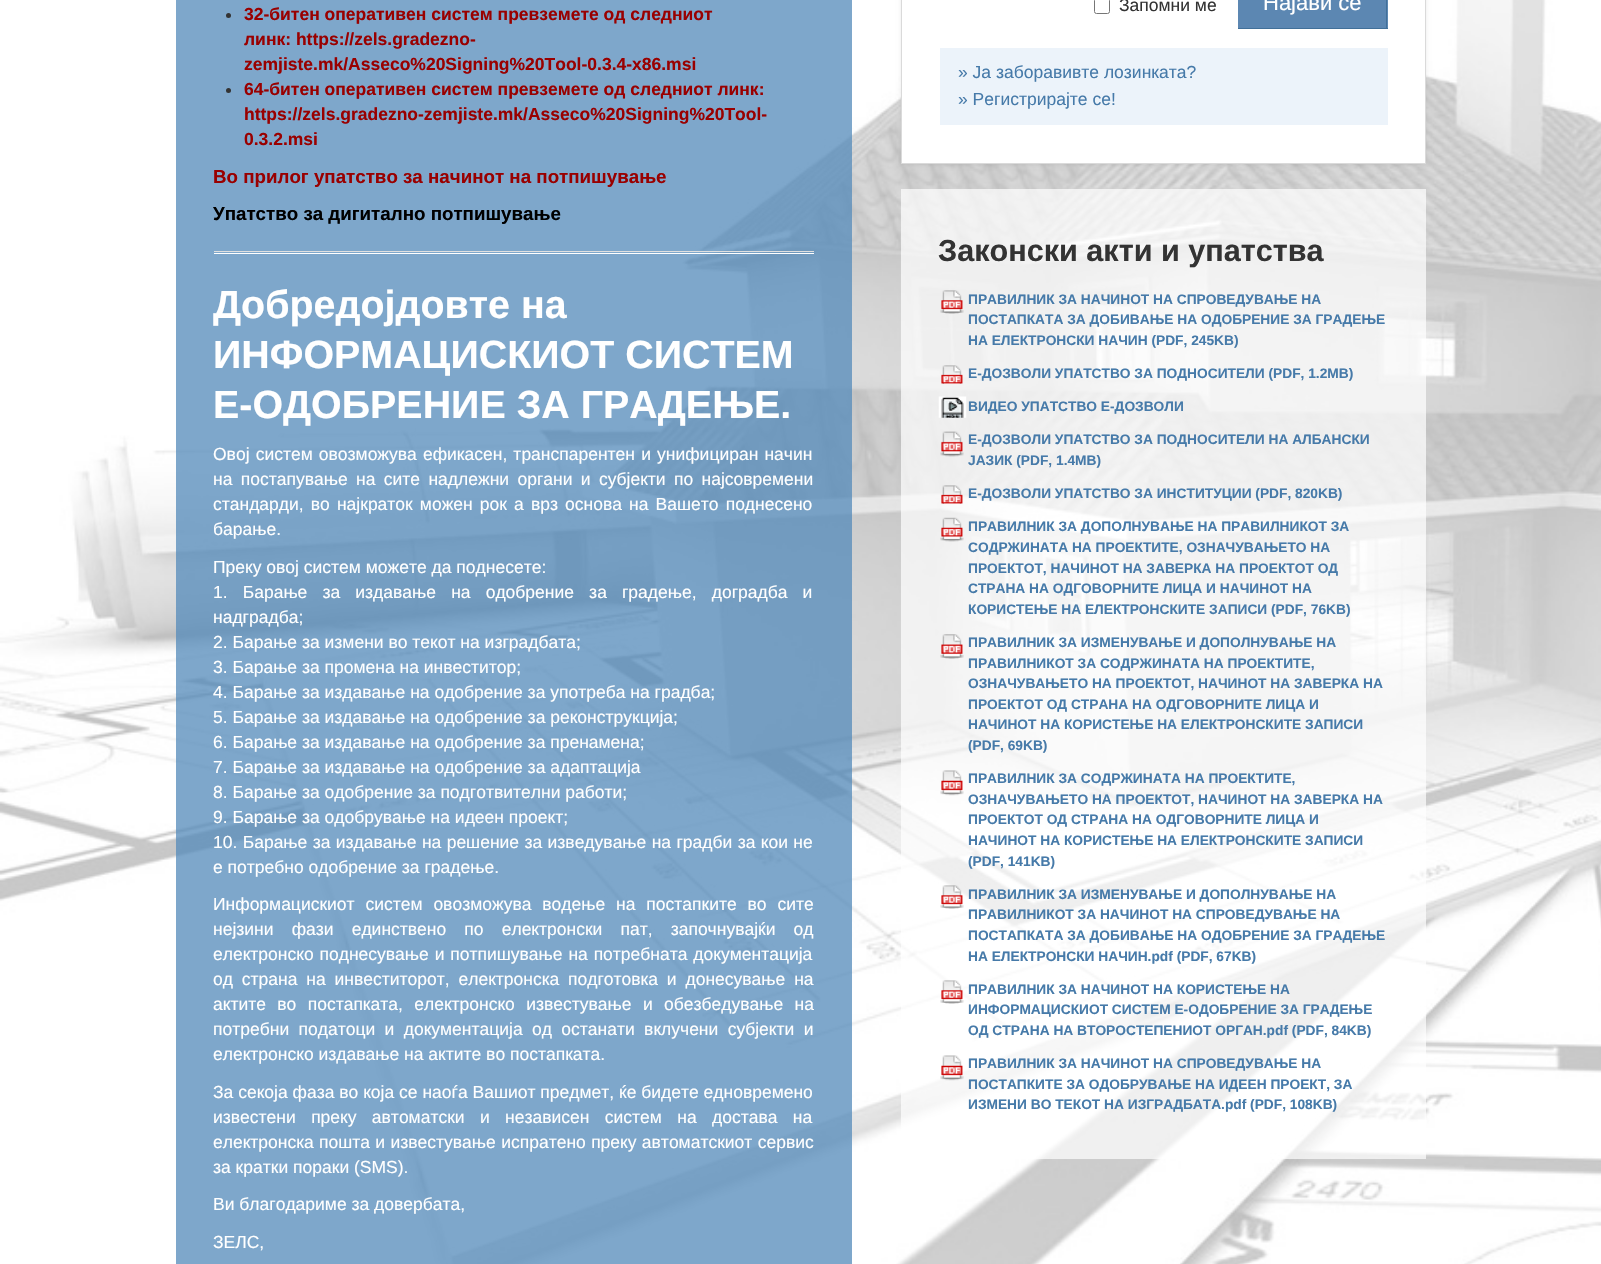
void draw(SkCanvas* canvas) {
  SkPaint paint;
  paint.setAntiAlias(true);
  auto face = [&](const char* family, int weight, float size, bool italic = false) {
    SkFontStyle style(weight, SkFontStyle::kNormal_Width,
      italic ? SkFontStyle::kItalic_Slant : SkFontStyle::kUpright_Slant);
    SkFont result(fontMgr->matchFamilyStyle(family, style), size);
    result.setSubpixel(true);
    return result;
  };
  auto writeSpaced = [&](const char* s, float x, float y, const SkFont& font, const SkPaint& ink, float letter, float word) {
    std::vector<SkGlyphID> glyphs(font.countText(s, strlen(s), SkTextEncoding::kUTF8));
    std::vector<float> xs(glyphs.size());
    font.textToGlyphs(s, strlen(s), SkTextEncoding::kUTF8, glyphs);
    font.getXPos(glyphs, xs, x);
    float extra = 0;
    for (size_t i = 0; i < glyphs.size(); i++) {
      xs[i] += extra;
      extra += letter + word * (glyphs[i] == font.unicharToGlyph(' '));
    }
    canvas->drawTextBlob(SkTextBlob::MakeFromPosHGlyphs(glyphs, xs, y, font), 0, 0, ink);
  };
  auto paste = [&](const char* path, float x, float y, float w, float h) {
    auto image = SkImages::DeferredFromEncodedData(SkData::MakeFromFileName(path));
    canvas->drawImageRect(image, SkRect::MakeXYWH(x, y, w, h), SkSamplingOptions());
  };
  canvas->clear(0xffffffff);
  paste("img/1.png", 0, 0, 1601, 1264);
  paint.setColor(0xbf538aba);
  canvas->drawRect(SkRect::MakeXYWH(176, 0, 676, 1264), paint);
  paint.setColor(0xff333333);
  canvas->drawCircle(228.5f, 15.5f, 2.5f, paint);
  canvas->drawCircle(228.5f, 90.5f, 2.5f, paint);
  paint.setColor(0xffe0e0e0);
  canvas->drawRect(SkRect::MakeXYWH(214, 251, 600, 1), paint);
  paint.setColor(0xffffffff);
  canvas->drawRect(SkRect::MakeXYWH(214, 253, 600, 1), paint);
  paint.setColor(0x14000000);
  paint.setMaskFilter(SkMaskFilter::MakeBlur(kNormal_SkBlurStyle, 2));
  canvas->drawRect(SkRect::MakeXYWH(901, -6, 525, 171), paint);
  paint.setMaskFilter(nullptr);
  paint.setColor(0xffffffff);
  canvas->drawRect(SkRect::MakeXYWH(901.5f, -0.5f, 524, 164), paint);
  paint.setStroke(true);
  paint.setStrokeWidth(1);
  paint.setColor(0xffdadada);
  canvas->drawRect(SkRect::MakeXYWH(901.5f, -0.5f, 524, 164), paint);
  paint.setColor(0xff767676);
  canvas->drawRoundRect(SkRect::MakeXYWH(1094.5f, -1.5f, 15, 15), 2, 2, paint);
  paint.setStroke(false);
  {
    const struct { float x, y, w, h; SkColor color; } items[] = {
      {1238, 0, 150, 28, 0xff5c87b2},
      {1386, 0, 1, 29, 0xff417099},
      {1238, 28, 150, 1, 0xff417099},
      {940, 48, 448, 77, 0xffecf3fa},
      {901, 189, 525, 970, 0xb3ffffff},
    };
    for (auto [x, y, w, h, color] : items) {
      paint.setColor(color);
      canvas->drawRect(SkRect::MakeXYWH(x, y, w, h), paint);
    }
  }
  paste("img/2.png", 940, 290, 24, 24);
  paste("img/3.png", 941, 365, 22, 19);
  paste("img/4.png", 938, 396, 29, 22);
  paste("img/5.png", 940, 431, 24, 26);
  paste("img/6.png", 941, 485, 22, 19);
  paste("img/7.png", 940, 517, 24, 25);
  paste("img/8.png", 940, 634, 24, 25);
  paste("img/9.png", 940, 770, 24, 26);
  paste("img/10.png", 940, 885, 24, 24);
  paste("img/11.png", 940, 980, 24, 24);
  paste("img/12.png", 940, 1055, 24, 26);
  auto f0 = face("Liberation Sans", 700, 17.5f);
  paint.setColor(0xff990000);
  {
    const struct { const char* s; float x, y; } items[] = {
      {"32-битен оперативен систем превземете од следниот", 244, 20},
      {"линк: https://zels.gradezno-", 244, 45},
      {"zemjiste.mk/Asseco%20Signing%20Tool-0.3.4-x86.msi", 244, 70},
      {"64-битен оперативен систем превземете од следниот линк:", 244, 95},
      {"https://zels.gradezno-zemjiste.mk/Asseco%20Signing%20Tool-", 244, 120},
      {"0.3.2.msi", 244, 145},
    };
    for (auto [s, x, y] : items) {
      canvas->drawString(s, x, y, f0, paint);
    }
  }
  auto f1 = face("Liberation Sans", 700, 18.75f);
  canvas->drawString("Во прилог упатство за начинот на потпишување", 213, 183, f1, paint);
  paint.setColor(0xff000000);
  canvas->drawString("Упатство за дигитално потпишување", 213, 220, f1, paint);
  auto f2 = face("Liberation Sans", 700, 39.4f);
  paint.setColor(0xffffffff);
  {
    const struct { const char* s; float x, y; } items[] = {
      {"Добредојдовте на", 213, 318},
      {"ИНФОРМАЦИСКИОТ СИСТЕМ", 213, 368},
      {"Е-ОДОБРЕНИЕ ЗА ГРАДЕЊЕ.", 213, 418},
    };
    for (auto [s, x, y] : items) {
      canvas->drawString(s, x, y, f2, paint);
    }
  }
  auto f3 = face("Liberation Sans", 400, 17.5f);
  writeSpaced("Овој систем овозможува ефикасен, транспарентен и унифициран начин", 213, 460, f3, paint, 0, 1.25f);
  writeSpaced("на постапување на сите надлежни органи и субјекти по најсовремени", 213, 485, f3, paint, 0, 3.5f);
  writeSpaced("стандарди, во најкраток можен рок а врз основа на Вашето поднесено", 213, 510, f3, paint, 0, 2.25f);
  canvas->drawString("барање.", 213, 535, f3, paint);
  canvas->drawString("Преку овој систем можете да поднесете:", 213, 573, f3, paint);
  writeSpaced("1. Барање за издавање на одобрение за градење, доградба и", 213, 598, f3, paint, 0, 10.25f);
  {
    const struct { const char* s; float x, y; } items[] = {
      {"надградба;", 213, 623},
      {"2. Барање за измени во текот на изградбата;", 213, 648},
      {"3. Барање за промена на инвеститор;", 213, 673},
      {"4. Барање за издавање на одобрение за употреба на градба;", 213, 698},
      {"5. Барање за издавање на одобрение за реконструкција;", 213, 723},
      {"6. Барање за издавање на одобрение за пренамена;", 213, 748},
      {"7. Барање за издавање на одобрение за адаптација", 213, 773},
      {"8. Барање за одобрение за подготвителни работи;", 213, 798},
      {"9. Барање за одобрување на идеен проект;", 213, 823},
    };
    for (auto [s, x, y] : items) {
      canvas->drawString(s, x, y, f3, paint);
    }
  }
  writeSpaced("10. Барање за издавање на решение за изведување на градби за кои не", 213, 848, f3, paint, 0, 0.5f);
  canvas->drawString("е потребно одобрение за градење.", 213, 873, f3, paint);
  writeSpaced("Информацискиот систем овозможува водење на постапките во сите", 213, 910, f3, paint, 0, 6);
  writeSpaced("нејзини фази единствено по електронски пат, започнувајќи од", 213, 935, f3, paint, 0, 13.25f);
  writeSpaced("електронско поднесување и потпишување на потребната документација", 213, 960, f3, paint, 0, 1);
  writeSpaced("од страна на инвеститорот, електронска подготовка и донесување на", 213, 985, f3, paint, 0, 4);
  writeSpaced("актите во постапката, електронско известување и обезбедување на", 213, 1010, f3, paint, 0, 6.5f);
  writeSpaced("потребни податоци и документација од останати вклучени субјекти и", 213, 1035, f3, paint, 0, 4.5f);
  canvas->drawString("електронско издавање на актите во постапката.", 213, 1060, f3, paint);
  canvas->drawString("За секоја фаза во која се наоѓа Вашиот предмет, ќе бидете едновремено", 213, 1098, f3, paint);
  writeSpaced("известени преку автоматски и независен систем на достава на", 213, 1123, f3, paint, 0, 10.5f);
  writeSpaced("електронска пошта и известување испратено преку автоматскиот сервис", 213, 1148, f3, paint, 0, 0.5f);
  {
    const struct { const char* s; float x, y; } items[] = {
      {"за кратки пораки (SMS).", 213, 1173},
      {"Ви благодариме за довербата,", 213, 1210},
      {"ЗЕЛС,", 213, 1248},
    };
    for (auto [s, x, y] : items) {
      canvas->drawString(s, x, y, f3, paint);
    }
  }
  paint.setColor(0xff333333);
  canvas->drawString("Запомни ме", 1119, 11, f3, paint);
  auto f4 = face("Liberation Sans", 400, 22);
  paint.setColor(0xffffffff);
  canvas->drawString("Најави се", 1263, 10, f4, paint);
  paint.setColor(0xff467aa9);
  canvas->drawString("» Ја заборавивте лозинката?", 958, 78, f3, paint);
  canvas->drawString("» Регистрирајте се!", 958, 105, f3, paint);
  auto f5 = face("Liberation Sans", 700, 30.6f);
  paint.setColor(0xff333333);
  canvas->drawString("Законски акти и упатства", 938, 261, f5, paint);
  auto f6 = face("Liberation Sans", 700, 13.75f);
  paint.setColor(0xff467aa9);
  {
    const struct { const char* s; float x, y; } items[] = {
      {"ПРАВИЛНИК ЗА НАЧИНОТ НА СПРОВЕДУВАЊЕ НА", 968, 304},
      {"ПОСТАПКАТА ЗА ДОБИВАЊЕ НА ОДОБРЕНИЕ ЗА ГРАДЕЊЕ", 968, 324},
      {"НА ЕЛЕКТРОНСКИ НАЧИН (PDF, 245KB)", 968, 345},
      {"Е-ДОЗВОЛИ УПАТСТВО ЗА ПОДНОСИТЕЛИ (PDF, 1.2MB)", 968, 378},
      {"ВИДЕО УПАТСТВО Е-ДОЗВОЛИ", 968, 411},
      {"Е-ДОЗВОЛИ УПАТСТВО ЗА ПОДНОСИТЕЛИ НА АЛБАНСКИ", 968, 444},
      {"ЈАЗИК (PDF, 1.4MB)", 968, 465},
      {"Е-ДОЗВОЛИ УПАТСТВО ЗА ИНСТИТУЦИИ (PDF, 820KB)", 968, 498},
      {"ПРАВИЛНИК ЗА ДОПОЛНУВАЊЕ НА ПРАВИЛНИКОТ ЗА", 968, 531},
      {"СОДРЖИНАТА НА ПРОЕКТИТЕ, ОЗНАЧУВАЊЕТО НА", 968, 552},
      {"ПРОЕКТОТ, НАЧИНОТ НА ЗАВЕРКА НА ПРОЕКТОТ ОД", 968, 573},
      {"СТРАНА НА ОДГОВОРНИТЕ ЛИЦА И НАЧИНОТ НА", 968, 593},
      {"КОРИСТЕЊЕ НА ЕЛЕКТРОНСКИТЕ ЗАПИСИ (PDF, 76KB)", 968, 614},
      {"ПРАВИЛНИК ЗА ИЗМЕНУВАЊЕ И ДОПОЛНУВАЊЕ НА", 968, 647},
      {"ПРАВИЛНИКОТ ЗА СОДРЖИНАТА НА ПРОЕКТИТЕ,", 968, 668},
      {"ОЗНАЧУВАЊЕТО НА ПРОЕКТОТ, НАЧИНОТ НА ЗAВЕРКА НА", 968, 688},
      {"ПРОЕКТОТ ОД СТРАНА НА ОДГОВОРНИТЕ ЛИЦА И", 968, 709},
      {"НАЧИНОТ НА КОРИСТЕЊЕ НА ЕЛЕКТРОНСКИТЕ ЗАПИСИ", 968, 729},
      {"(PDF, 69KB)", 968, 750},
      {"ПРАВИЛНИК ЗА СОДРЖИНАТА НА ПРОЕКТИТЕ,", 968, 783},
      {"ОЗНАЧУВАЊЕТО НА ПРОЕКТОТ, НАЧИНОТ НА ЗАВЕРКА НА", 968, 804},
      {"ПРОЕКТОТ ОД СТРАНА НА ОДГОВОРНИТЕ ЛИЦА И", 968, 824},
      {"НАЧИНОТ НА КОРИСТЕЊЕ НА ЕЛЕКТРОНСКИТЕ ЗАПИСИ", 968, 845},
      {"(PDF, 141KB)", 968, 866},
      {"ПРАВИЛНИК ЗА ИЗМЕНУВАЊЕ И ДОПОЛНУВАЊЕ НА", 968, 899},
      {"ПРАВИЛНИКОТ ЗА НАЧИНОТ НА СПРОВЕДУВАЊЕ НА", 968, 919},
      {"ПОСТАПКАТА ЗА ДОБИВАЊЕ НА ОДОБРЕНИЕ ЗА ГРАДЕЊЕ", 968, 940},
      {"НА ЕЛЕКТРОНСКИ НАЧИН.pdf (PDF, 67KB)", 968, 961},
      {"ПРАВИЛНИК ЗА НАЧИНОТ НА КОРИСТЕЊЕ НА", 968, 994},
      {"ИНФОРМАЦИСКИОТ СИСТЕМ Е-ОДОБРЕНИЕ ЗА ГРАДЕЊЕ", 968, 1014},
      {"ОД СТРАНА НА ВТОРОСТЕПЕНИОТ ОРГАН.pdf (PDF, 84KB)", 968, 1035},
      {"ПРАВИЛНИК ЗА НАЧИНОТ НА СПРОВЕДУВАЊЕ НА", 968, 1068},
      {"ПОСТАПКИТЕ ЗА ОДОБРУВАЊЕ НА ИДЕЕН ПРОЕКТ, ЗА", 968, 1089},
      {"ИЗМЕНИ ВО ТЕКОТ НА ИЗГРАДБАТА.pdf (PDF, 108KB)", 968, 1109},
    };
    for (auto [s, x, y] : items) {
      canvas->drawString(s, x, y, f6, paint);
    }
  }
}
